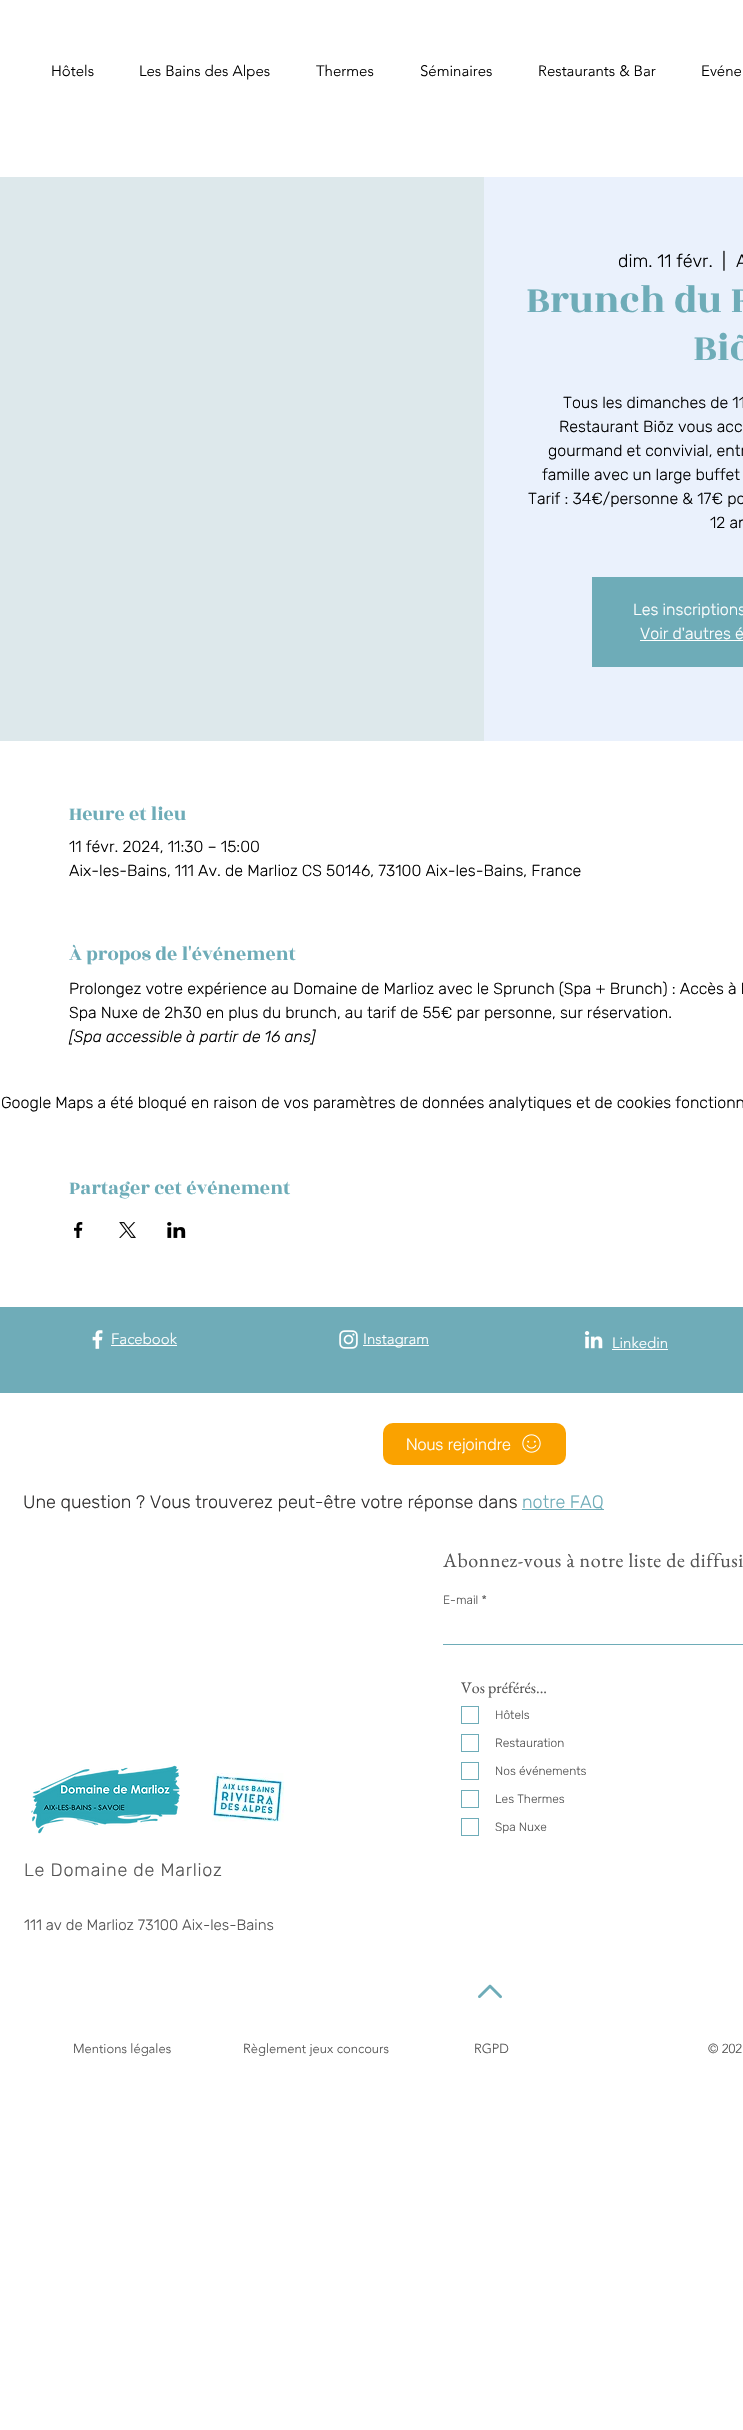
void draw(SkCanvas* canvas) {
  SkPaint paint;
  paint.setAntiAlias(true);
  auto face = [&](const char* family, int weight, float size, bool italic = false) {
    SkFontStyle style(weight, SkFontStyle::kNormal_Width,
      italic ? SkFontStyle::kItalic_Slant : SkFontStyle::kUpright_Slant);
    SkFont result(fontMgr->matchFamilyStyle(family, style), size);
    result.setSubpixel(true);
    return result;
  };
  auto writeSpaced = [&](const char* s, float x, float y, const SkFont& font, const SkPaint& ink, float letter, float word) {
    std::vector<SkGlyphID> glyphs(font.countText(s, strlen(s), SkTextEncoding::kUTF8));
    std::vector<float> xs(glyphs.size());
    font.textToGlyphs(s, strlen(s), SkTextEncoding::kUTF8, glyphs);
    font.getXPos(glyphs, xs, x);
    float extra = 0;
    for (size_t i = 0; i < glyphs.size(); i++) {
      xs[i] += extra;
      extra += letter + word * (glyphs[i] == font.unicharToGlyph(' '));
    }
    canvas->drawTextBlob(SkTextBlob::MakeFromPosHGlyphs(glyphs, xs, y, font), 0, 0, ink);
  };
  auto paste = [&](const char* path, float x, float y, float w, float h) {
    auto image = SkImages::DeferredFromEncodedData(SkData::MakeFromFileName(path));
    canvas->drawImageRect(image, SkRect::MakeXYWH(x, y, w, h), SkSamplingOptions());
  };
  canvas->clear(0xffffffff);
  {
    const struct { float x, y, w, h; SkColor color; } items[] = {
      {0, 177, 484, 564, 0xffdde8eb},
      {484, 177, 259, 564, 0xffeaf1fc},
      {592, 577, 151, 90, 0xff6eacb8},
      {640, 640, 103, 1, 0xffffffff},
    };
    for (auto [x, y, w, h, color] : items) {
      paint.setColor(color);
      canvas->drawRect(SkRect::MakeXYWH(x, y, w, h), paint);
    }
  }
  paste("img/1.png", 74, 1222, 9, 16);
  paste("img/2.png", 119, 1222, 17, 16);
  paste("img/3.png", 167, 1222, 19, 16);
  paint.setColor(0xff6facb8);
  canvas->drawRect(SkRect::MakeXYWH(0, 1307, 743, 86), paint);
  paste("img/4.png", 92, 1330, 11, 19);
  paint.setColor(0xffffffff);
  canvas->drawRect(SkRect::MakeXYWH(111, 1345, 66, 1), paint);
  paste("img/5.png", 339, 1330, 19, 19);
  canvas->drawRect(SkRect::MakeXYWH(363, 1345, 66, 1), paint);
  paste("img/6.png", 584, 1331, 19, 18);
  canvas->drawRect(SkRect::MakeXYWH(612, 1349, 56, 1), paint);
  paint.setColor(0xfffaa200);
  canvas->drawRoundRect(SkRect::MakeXYWH(383, 1423, 183, 42), 10, 10, paint);
  paste("img/7.png", 522, 1434, 19, 19);
  paint.setColor(0xff6eacb8);
  canvas->drawRect(SkRect::MakeXYWH(522, 1509, 82, 1), paint);
  paste("img/8.png", 31, 1765, 149, 69);
  paste("img/9.png", 212, 1773, 72, 49);
  canvas->drawRect(SkRect::MakeXYWH(443, 1644, 300, 1), paint);
  paint.setStroke(true);
  paint.setStrokeWidth(1);
  canvas->drawRect(SkRect::MakeXYWH(461.5f, 1706.5f, 17, 17), paint);
  canvas->drawRect(SkRect::MakeXYWH(461.5f, 1734.5f, 17, 17), paint);
  canvas->drawRect(SkRect::MakeXYWH(461.5f, 1762.5f, 17, 17), paint);
  canvas->drawRect(SkRect::MakeXYWH(461.5f, 1790.5f, 17, 17), paint);
  canvas->drawRect(SkRect::MakeXYWH(461.5f, 1818.5f, 17, 17), paint);
  paste("img/10.png", 478, 1984, 24, 15);
  auto f0 = face("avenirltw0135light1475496", 300, 15);
  paint.setStroke(false);
  paint.setColor(0xff000000);
  {
    const struct { const char* s; float x, y; } items[] = {
      {"Hôtels", 51, 76},
      {"Les Bains des Alpes", 139, 76},
      {"Thermes", 316, 76},
      {"Séminaires", 420, 76},
      {"Restaurants & Bar", 538, 76},
      {"Evéne", 701, 76},
    };
    for (auto [s, x, y] : items) {
      canvas->drawString(s, x, y, f0, paint);
    }
  }
  auto f1 = face("Rubik", 300, 18);
  {
    const struct { const char* s; float x, y; } items[] = {
      {"dim. 11 févr.", 618, 267},
      {"|", 722, 267},
      {"A", 736, 267},
    };
    for (auto [s, x, y] : items) {
      canvas->drawString(s, x, y, f1, paint);
    }
  }
  auto f2 = face("Rozha One", 400, 40);
  paint.setColor(0xff6eacb8);
  canvas->drawString("Brunch du R", 526, 312, f2, paint);
  canvas->drawString("Biõ", 693, 360, f2, paint);
  auto f3 = face("Rubik", 300, 16);
  paint.setColor(0xff000000);
  {
    const struct { const char* s; float x, y; } items[] = {
      {"Tous les dimanches de 11", 563, 408},
      {"Restaurant Biõz vous acc", 559, 432},
      {"gourmand et convivial, entr", 548, 456},
      {"famille avec un large buffet", 542, 480},
      {"Tarif : 34€/personne & 17€ po", 528, 504},
      {"12 an", 710, 528},
    };
    for (auto [s, x, y] : items) {
      canvas->drawString(s, x, y, f3, paint);
    }
  }
  paint.setColor(0xffffffff);
  canvas->drawString("Les inscriptions", 633, 615, f3, paint);
  canvas->drawString("Voir d'autres é", 640, 639, f3, paint);
  auto f4 = face("Rozha One", 400, 20);
  paint.setColor(0xff6eacb8);
  canvas->drawString("Heure et lieu", 69, 820, f4, paint);
  paint.setColor(0xff000000);
  canvas->drawString("11 févr. 2024, 11:30 – 15:00", 69, 852, f3, paint);
  canvas->drawString("Aix-les-Bains, 111 Av. de Marlioz CS 50146, 73100 Aix-les-Bains, France", 69, 876, f3, paint);
  paint.setColor(0xff6eacb8);
  canvas->drawString("À propos de l'événement", 69, 960, f4, paint);
  paint.setColor(0xff000000);
  canvas->drawString("Prolongez votre expérience au Domaine de Marlioz avec le Sprunch (Spa + Brunch) : Accès à l", 69, 994, f3, paint);
  canvas->drawString("Spa Nuxe de 2h30 en plus du brunch, au tarif de 55€ par personne, sur réservation.", 69, 1018, f3, paint);
  auto f5 = face("Rubik", 300, 16, true);
  canvas->drawString("[Spa accessible à partir de 16 ans]", 69, 1042, f5, paint);
  canvas->drawString("Google Maps a été bloqué en raison de vos paramètres de données analytiques et de cookies fonctionn", 1, 1108, f3, paint);
  paint.setColor(0xff6eacb8);
  canvas->drawString("Partager cet événement", 69, 1194, f4, paint);
  paint.setColor(0xffffffff);
  {
    const struct { const char* s; float x, y; } items[] = {
      {"Facebook", 111, 1344},
      {"Instagram", 363, 1344},
      {"Linkedin", 612, 1348},
    };
    for (auto [s, x, y] : items) {
      canvas->drawString(s, x, y, f0, paint);
    }
  }
  auto f6 = face("helvetica", 300, 16);
  canvas->drawString("Nous rejoindre", 406, 1450, f6, paint);
  paint.setColor(0xff2f2e2e);
  canvas->drawString("Une question ? Vous trouverez peut-être votre réponse dans", 23, 1508, f1, paint);
  paint.setColor(0xff6eacb8);
  canvas->drawString("notre FAQ", 522, 1508, f1, paint);
  auto f7 = face("EB Garamond", 400, 20);
  paint.setColor(0xff545454);
  writeSpaced("Abonnez-vous à notre liste de diffusi", 443, 1567, f7, paint, 0.6f, 0);
  auto f8 = face("Rubik", 300, 12);
  canvas->drawString("E-mail *", 443, 1604, f8, paint);
  auto f9 = face("EB Garamond", 400, 16);
  canvas->drawString("Vos préférés...", 461, 1693, f9, paint);
  {
    const struct { const char* s; float x, y; } items[] = {
      {"Hôtels", 495, 1719},
      {"Restauration", 495, 1747},
      {"Nos événements", 495, 1775},
      {"Les Thermes", 495, 1803},
      {"Spa Nuxe", 495, 1831},
    };
    for (auto [s, x, y] : items) {
      canvas->drawString(s, x, y, f8, paint);
    }
  }
  writeSpaced("Le Domaine de Marlioz", 24, 1876, f1, paint, 0.75f, 0);
  auto f10 = face("Rubik", 300, 15);
  canvas->drawString("111 av de Marlioz 73100 Aix-les-Bains", 24, 1930, f10, paint);
  auto f11 = face("avenirltw0135light1475496", 300, 13);
  {
    const struct { const char* s; float x, y; } items[] = {
      {"Mentions légales", 73, 2053},
      {"Règlement jeux concours", 243, 2053},
      {"RGPD", 474, 2053},
      {"© 202", 708, 2053},
    };
    for (auto [s, x, y] : items) {
      canvas->drawString(s, x, y, f11, paint);
    }
  }
}
